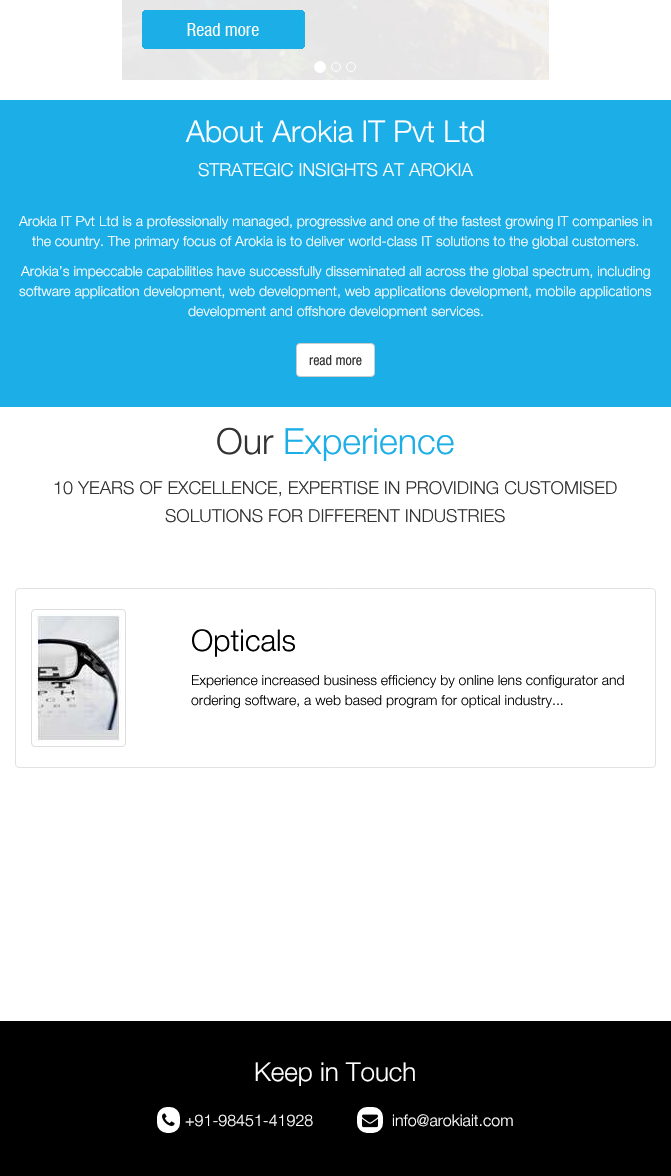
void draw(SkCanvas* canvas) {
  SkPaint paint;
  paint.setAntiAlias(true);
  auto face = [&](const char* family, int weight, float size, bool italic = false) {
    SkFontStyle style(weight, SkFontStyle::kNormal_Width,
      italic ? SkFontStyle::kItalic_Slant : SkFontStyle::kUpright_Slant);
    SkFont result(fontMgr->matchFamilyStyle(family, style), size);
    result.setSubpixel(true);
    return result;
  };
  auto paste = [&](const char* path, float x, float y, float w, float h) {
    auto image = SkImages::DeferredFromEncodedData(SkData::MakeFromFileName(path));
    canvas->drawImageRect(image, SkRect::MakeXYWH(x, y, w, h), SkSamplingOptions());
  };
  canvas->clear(0xffffffff);
  paste("img/1.png", 122, 0, 427, 80);
  paint.setColor(0xffffffff);
  canvas->drawCircle(320, 67, 5.5f, paint);
  paint.setStroke(true);
  paint.setStrokeWidth(1);
  canvas->drawCircle(320, 67, 5.5f, paint);
  canvas->drawCircle(336, 67, 4.5f, paint);
  canvas->drawCircle(351, 67, 4.5f, paint);
  paint.setStroke(false);
  paint.setColor(0xff1caee7);
  canvas->drawRect(SkRect::MakeXYWH(0, 100, 671, 307), paint);
  paint.setColor(0xffffffff);
  canvas->drawRoundRect(SkRect::MakeXYWH(296.5f, 343.5f, 78, 33), 3.5f, 3.5f, paint);
  paint.setStroke(true);
  paint.setColor(0xffcccccc);
  canvas->drawRoundRect(SkRect::MakeXYWH(296.5f, 343.5f, 78, 33), 3.5f, 3.5f, paint);
  paint.setColor(0xffe2e2e2);
  canvas->drawRoundRect(SkRect::MakeXYWH(15.5f, 588.5f, 640, 179), 3.5f, 3.5f, paint);
  paint.setColor(0xffdddddd);
  canvas->drawRoundRect(SkRect::MakeXYWH(31.5f, 609.5f, 94, 137), 3.5f, 3.5f, paint);
  paste("img/2.png", 36, 614, 85, 128);
  paint.setStroke(false);
  paint.setColor(0xff000000);
  canvas->drawRect(SkRect::MakeXYWH(0, 1021, 671, 155), paint);
  paint.setColor(0xffffffff);
  canvas->drawRoundRect(SkRect::MakeXYWH(157, 1107, 23, 26), 10, 10, paint);
  paste("img/3.png", 162, 1113, 13, 13);
  canvas->drawRoundRect(SkRect::MakeXYWH(357, 1107, 26, 26), 10, 10, paint);
  paste("img/4.png", 362, 1114, 16, 14);
  auto f0 = face("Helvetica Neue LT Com", 300, 30);
  canvas->drawString("About Arokia IT Pvt Ltd", 186, 142, f0, paint);
  auto f1 = face("Helvetica Neue LT Com", 300, 18);
  canvas->drawString("STRATEGIC INSIGHTS AT AROKIA", 198, 176, f1, paint);
  auto f2 = face("Helvetica Neue LT Com", 300, 14);
  {
    const struct { const char* s; float x, y; } items[] = {
      {"Arokia IT Pvt Ltd is a professionally managed, progressive and one of the fastest growing IT companies in", 19, 226},
      {"the country. The primary focus of Arokia is to deliver world-class IT solutions to the global customers.", 32, 246},
      {"Arokia’s impeccable capabilities have successfully disseminated all across the global spectrum, including", 21, 276},
      {"software application development, web development, web applications development, mobile applications", 19, 296},
      {"development and offshore development services.", 188, 316},
    };
    for (auto [s, x, y] : items) {
      canvas->drawString(s, x, y, f2, paint);
    }
  }
  auto f3 = face("Helvetica Neue", 400, 14);
  paint.setColor(0xff333333);
  canvas->drawString("read more", 309, 365, f3, paint);
  auto f4 = face("Helvetica Neue LT Com", 300, 36);
  canvas->drawString("Our", 216, 454, f4, paint);
  paint.setColor(0xff1caee7);
  canvas->drawString("Experience", 283, 454, f4, paint);
  paint.setColor(0xff333333);
  canvas->drawString("10 YEARS OF EXCELLENCE, EXPERTISE IN PROVIDING CUSTOMISED", 53, 494, f1, paint);
  canvas->drawString("SOLUTIONS FOR DIFFERENT INDUSTRIES", 165, 522, f1, paint);
  paint.setColor(0xff000000);
  canvas->drawString("Opticals", 191, 651, f0, paint);
  canvas->drawString("Experience increased business efficiency by online lens configurator and", 191, 685, f2, paint);
  canvas->drawString("ordering software, a web based program for optical industry...", 191, 705, f2, paint);
  auto f5 = face("Helvetica Neue LT Com", 300, 26);
  paint.setColor(0xffffffff);
  canvas->drawString("Keep in Touch", 254, 1081, f5, paint);
  auto f6 = face("Helvetica Neue LT Com", 300, 16);
  canvas->drawString("+91-98451-41928", 185, 1126, f6, paint);
  canvas->drawString("info@arokiait.com", 392, 1126, f6, paint);
}
